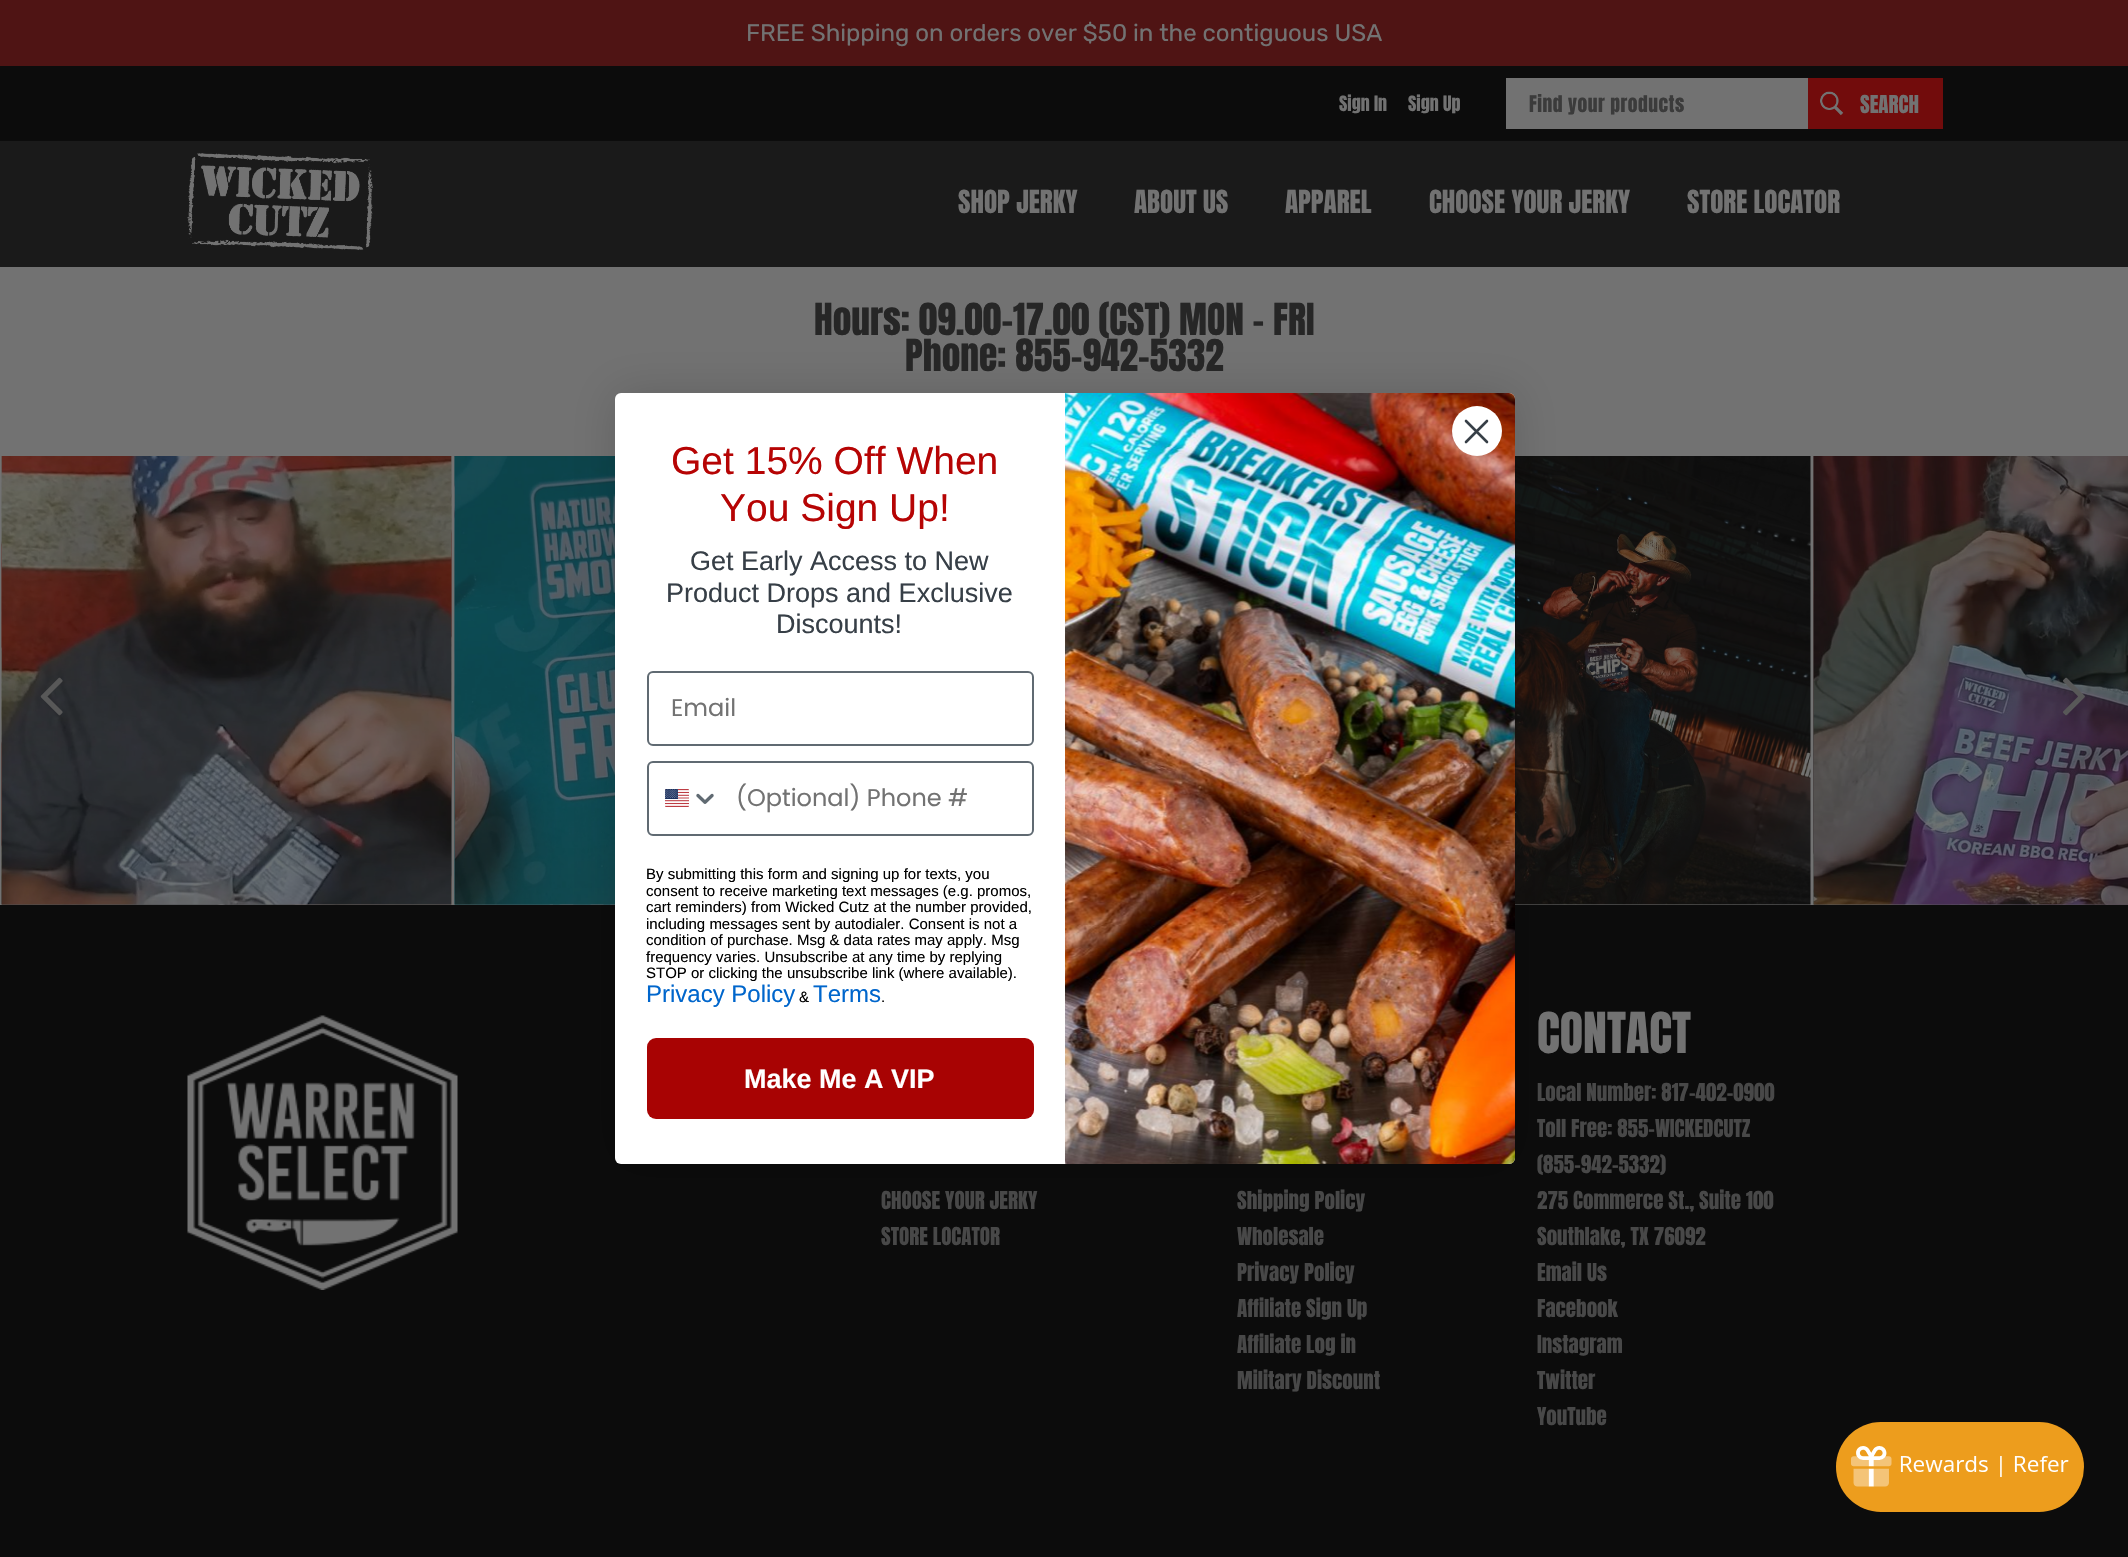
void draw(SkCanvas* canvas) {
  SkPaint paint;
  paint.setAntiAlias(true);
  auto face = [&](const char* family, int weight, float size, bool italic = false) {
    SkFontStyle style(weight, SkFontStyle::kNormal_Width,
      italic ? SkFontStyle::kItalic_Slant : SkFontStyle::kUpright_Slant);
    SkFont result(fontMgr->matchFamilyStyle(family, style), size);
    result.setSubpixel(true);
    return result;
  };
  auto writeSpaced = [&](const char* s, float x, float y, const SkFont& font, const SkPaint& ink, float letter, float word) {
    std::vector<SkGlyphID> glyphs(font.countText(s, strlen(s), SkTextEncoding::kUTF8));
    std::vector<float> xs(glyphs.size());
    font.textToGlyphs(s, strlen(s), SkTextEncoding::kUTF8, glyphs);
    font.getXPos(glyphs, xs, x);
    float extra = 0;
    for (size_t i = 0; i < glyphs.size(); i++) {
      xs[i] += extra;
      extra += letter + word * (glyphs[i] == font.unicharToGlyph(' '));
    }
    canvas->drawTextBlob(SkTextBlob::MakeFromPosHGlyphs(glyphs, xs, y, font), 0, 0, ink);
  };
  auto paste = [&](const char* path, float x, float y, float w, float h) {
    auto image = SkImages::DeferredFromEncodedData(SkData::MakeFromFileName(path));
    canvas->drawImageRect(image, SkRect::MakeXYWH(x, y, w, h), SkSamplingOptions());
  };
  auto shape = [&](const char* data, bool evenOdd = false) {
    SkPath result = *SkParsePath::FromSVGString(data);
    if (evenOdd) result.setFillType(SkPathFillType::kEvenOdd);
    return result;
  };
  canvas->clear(0xff727272);
  {
    const struct { float x, y, w, h; SkColor color; } items[] = {
      {0, 0, 2128, 66, 0xff4f1414},
      {0, 66, 2128, 75, 0xff0c0c0c},
      {1506, 78, 302, 51, 0xff727272},
      {1808, 78, 135, 51, 0xff720c0c},
    };
    for (auto [x, y, w, h, color] : items) {
      paint.setColor(color);
      canvas->drawRect(SkRect::MakeXYWH(x, y, w, h), paint);
    }
  }
  paste("img/1.png", 1820, 91, 24, 25);
  paint.setColor(0xff1a1a1a);
  canvas->drawRect(SkRect::MakeXYWH(0, 141, 2128, 126), paint);
  paste("img/2.png", 187, 153, 186, 97);
  paste("img/3.png", 1, 456, 451, 449);
  paste("img/4.png", 1, 456, 451, 449);
  paste("img/5.png", 454, 456, 161, 449);
  paste("img/6.png", 454, 456, 161, 449);
  paste("img/7.png", 1515, 456, 296, 449);
  paste("img/8.png", 1813, 456, 315, 449);
  paste("img/9.png", 1813, 456, 315, 449);
  paste("img/10.png", 40, 677, 23, 39);
  paste("img/11.png", 2063, 677, 22, 39);
  paint.setColor(0xff0c0c0c);
  canvas->drawRect(SkRect::MakeXYWH(0, 905, 2128, 652), paint);
  paste("img/12.png", 187, 1015, 271, 275);
  paint.setColor(0x26000000);
  paint.setMaskFilter(SkMaskFilter::MakeBlur(kNormal_SkBlurStyle, 22.5f));
  canvas->drawRoundRect(SkRect::MakeXYWH(615, 393, 900, 771), 6, 6, paint);
  paint.setMaskFilter(nullptr);
  paint.setColor(0xffffffff);
  canvas->drawRoundRect(SkRect::MakeXYWH(615, 393, 900, 771), 6, 6, paint);
  paste("img/15.png", 1065, 393, 450, 771);
  canvas->drawCircle(1477, 431, 25, paint);
  paint.setStroke(true);
  paint.setStrokeWidth(2.6f);
  paint.setStrokeCap(SkPaint::kRound_Cap);
  paint.setStrokeJoin(SkPaint::kRound_Join);
  paint.setColor(0xff373f47);
  canvas->drawPath(shape("M1466 421L1487 442M1466 442L1487 421Z"), paint);
  paint.setStrokeWidth(2);
  paint.setStrokeCap(SkPaint::kButt_Cap);
  paint.setStrokeJoin(SkPaint::kMiter_Join);
  paint.setColor(0xff606a72);
  canvas->drawRoundRect(SkRect::MakeXYWH(648, 672, 385, 73), 5, 5, paint);
  canvas->drawRoundRect(SkRect::MakeXYWH(648, 762, 385, 73), 5, 5, paint);
  paste("img/13.png", 665, 789, 24, 18);
  paste("img/14.png", 696, 793, 18, 11);
  paint.setStroke(false);
  paint.setColor(0xffa80303);
  canvas->drawRoundRect(SkRect::MakeXYWH(647, 1038, 387, 81), 9, 9, paint);
  paint.setColor(0xffed9d1d);
  canvas->drawRoundRect(SkRect::MakeXYWH(1836, 1422, 248, 90), 45, 45, paint);
  paste("img/16.png", 1851, 1446, 218, 41);
  auto f0 = face("Rubik", 300, 24);
  paint.setColor(0xff727272);
  canvas->drawString("FREE Shipping on orders over $50 in the contiguous USA", 746, 41, f0, paint);
  auto f1 = face("Anton", 400, 18);
  canvas->drawString("Sign In", 1339, 111, f1, paint);
  canvas->drawString("Sign Up", 1408, 111, f1, paint);
  auto f2 = face("Anton", 400, 19.5f);
  paint.setColor(0xff3b3b3b);
  writeSpaced("Find your products", 1529, 112, f2, paint, 0.5f, 0);
  auto f3 = face("Anton", 400, 21);
  paint.setColor(0xff727272);
  canvas->drawString("SEARCH", 1860, 113, f3, paint);
  auto f4 = face("Anton", 400, 27);
  {
    const struct { const char* s; float x, y; } items[] = {
      {"SHOP JERKY", 958, 213},
      {"ABOUT US", 1134, 213},
      {"APPAREL", 1285, 213},
      {"CHOOSE YOUR JERKY", 1429, 213},
      {"STORE LOCATOR", 1687, 213},
    };
    for (auto [s, x, y] : items) {
      canvas->drawString(s, x, y, f4, paint);
    }
  }
  auto f5 = face("Anton", 400, 37.5f);
  paint.setColor(0xff262626);
  canvas->drawString("Hours: 09.00-17.00 (CST) MON - FRI", 814, 335, f5, paint);
  canvas->drawString("Phone: 855-942-5332", 905, 371, f5, paint);
  paint.setColor(0xff484848);
  {
    const struct { const char* s; float x, y; } items[] = {
      {"CHOOSE YOUR JERKY", 881, 1209},
      {"STORE LOCATOR", 881, 1245},
      {"Shipping Policy", 1237, 1209},
      {"Wholesale", 1237, 1245},
      {"Privacy Policy", 1237, 1281},
      {"Affiliate Sign Up", 1237, 1317},
      {"Affiliate Log in", 1237, 1353},
      {"Military Discount", 1237, 1389},
    };
    for (auto [s, x, y] : items) {
      canvas->drawString(s, x, y, f3, paint);
    }
  }
  auto f6 = face("Anton", 400, 48);
  paint.setColor(0xff727272);
  canvas->drawString("CONTACT", 1537, 1053, f6, paint);
  paint.setColor(0xff484848);
  {
    const struct { const char* s; float x, y; } items[] = {
      {"Local Number: 817-402-0900", 1537, 1101},
      {"Toll Free: 855-WICKEDCUTZ", 1537, 1137},
      {"(855-942-5332)", 1537, 1173},
      {"275 Commerce St., Suite 100", 1537, 1209},
      {"Southlake, TX 76092", 1537, 1245},
      {"Email Us", 1537, 1281},
      {"Facebook", 1537, 1317},
      {"Instagram", 1537, 1353},
      {"Twitter", 1537, 1389},
      {"YouTube", 1537, 1425},
    };
    for (auto [s, x, y] : items) {
      canvas->drawString(s, x, y, f3, paint);
    }
  }
  auto f7 = face("Liberation Sans", 400, 39);
  paint.setColor(0xffb60404);
  canvas->drawString("Get 15% Off When", 671, 474, f7, paint);
  canvas->drawString("You Sign Up!", 720, 521, f7, paint);
  auto f8 = face("Liberation Sans", 400, 27);
  paint.setColor(0xff373f47);
  {
    const struct { const char* s; float x, y; } items[] = {
      {"Get Early Access to New", 690, 570},
      {"Product Drops and Exclusive", 666, 602},
      {"Discounts!", 776, 633},
    };
    for (auto [s, x, y] : items) {
      canvas->drawString(s, x, y, f8, paint);
    }
  }
  auto f9 = face("Poppins", 400, 24);
  paint.setColor(0xff727272);
  canvas->drawString("Email", 671, 716, f9, paint);
  canvas->drawString("(Optional) Phone #", 736, 806, f9, paint);
  auto f10 = face("Liberation Sans", 400, 15);
  paint.setColor(0xff000000);
  {
    const struct { const char* s; float x, y; } items[] = {
      {"By submitting this form and signing up for texts, you", 646, 879},
      {"consent to receive marketing text messages (e.g. promos,", 646, 896},
      {"cart reminders) from Wicked Cutz at the number provided,", 646, 912},
      {"including messages sent by autodialer. Consent is not a", 646, 929},
      {"condition of purchase. Msg & data rates may apply. Msg", 646, 945},
      {"frequency varies. Unsubscribe at any time by replying", 646, 962},
      {"STOP or clicking the unsubscribe link (where available).", 646, 978},
    };
    for (auto [s, x, y] : items) {
      canvas->drawString(s, x, y, f10, paint);
    }
  }
  auto f11 = face("Liberation Sans", 400, 24);
  paint.setColor(0xff0066cc);
  canvas->drawString("Privacy Policy", 646, 1002, f11, paint);
  paint.setColor(0xff000000);
  canvas->drawString("&", 799, 1002, f10, paint);
  paint.setColor(0xff0066cc);
  canvas->drawString("Terms", 813, 1002, f11, paint);
  paint.setColor(0xff000000);
  canvas->drawString(".", 881, 1002, f10, paint);
  auto f12 = face("Liberation Sans", 700, 27);
  paint.setColor(0xffffffff);
  canvas->drawString("Make Me A VIP", 744, 1088, f12, paint);
}
